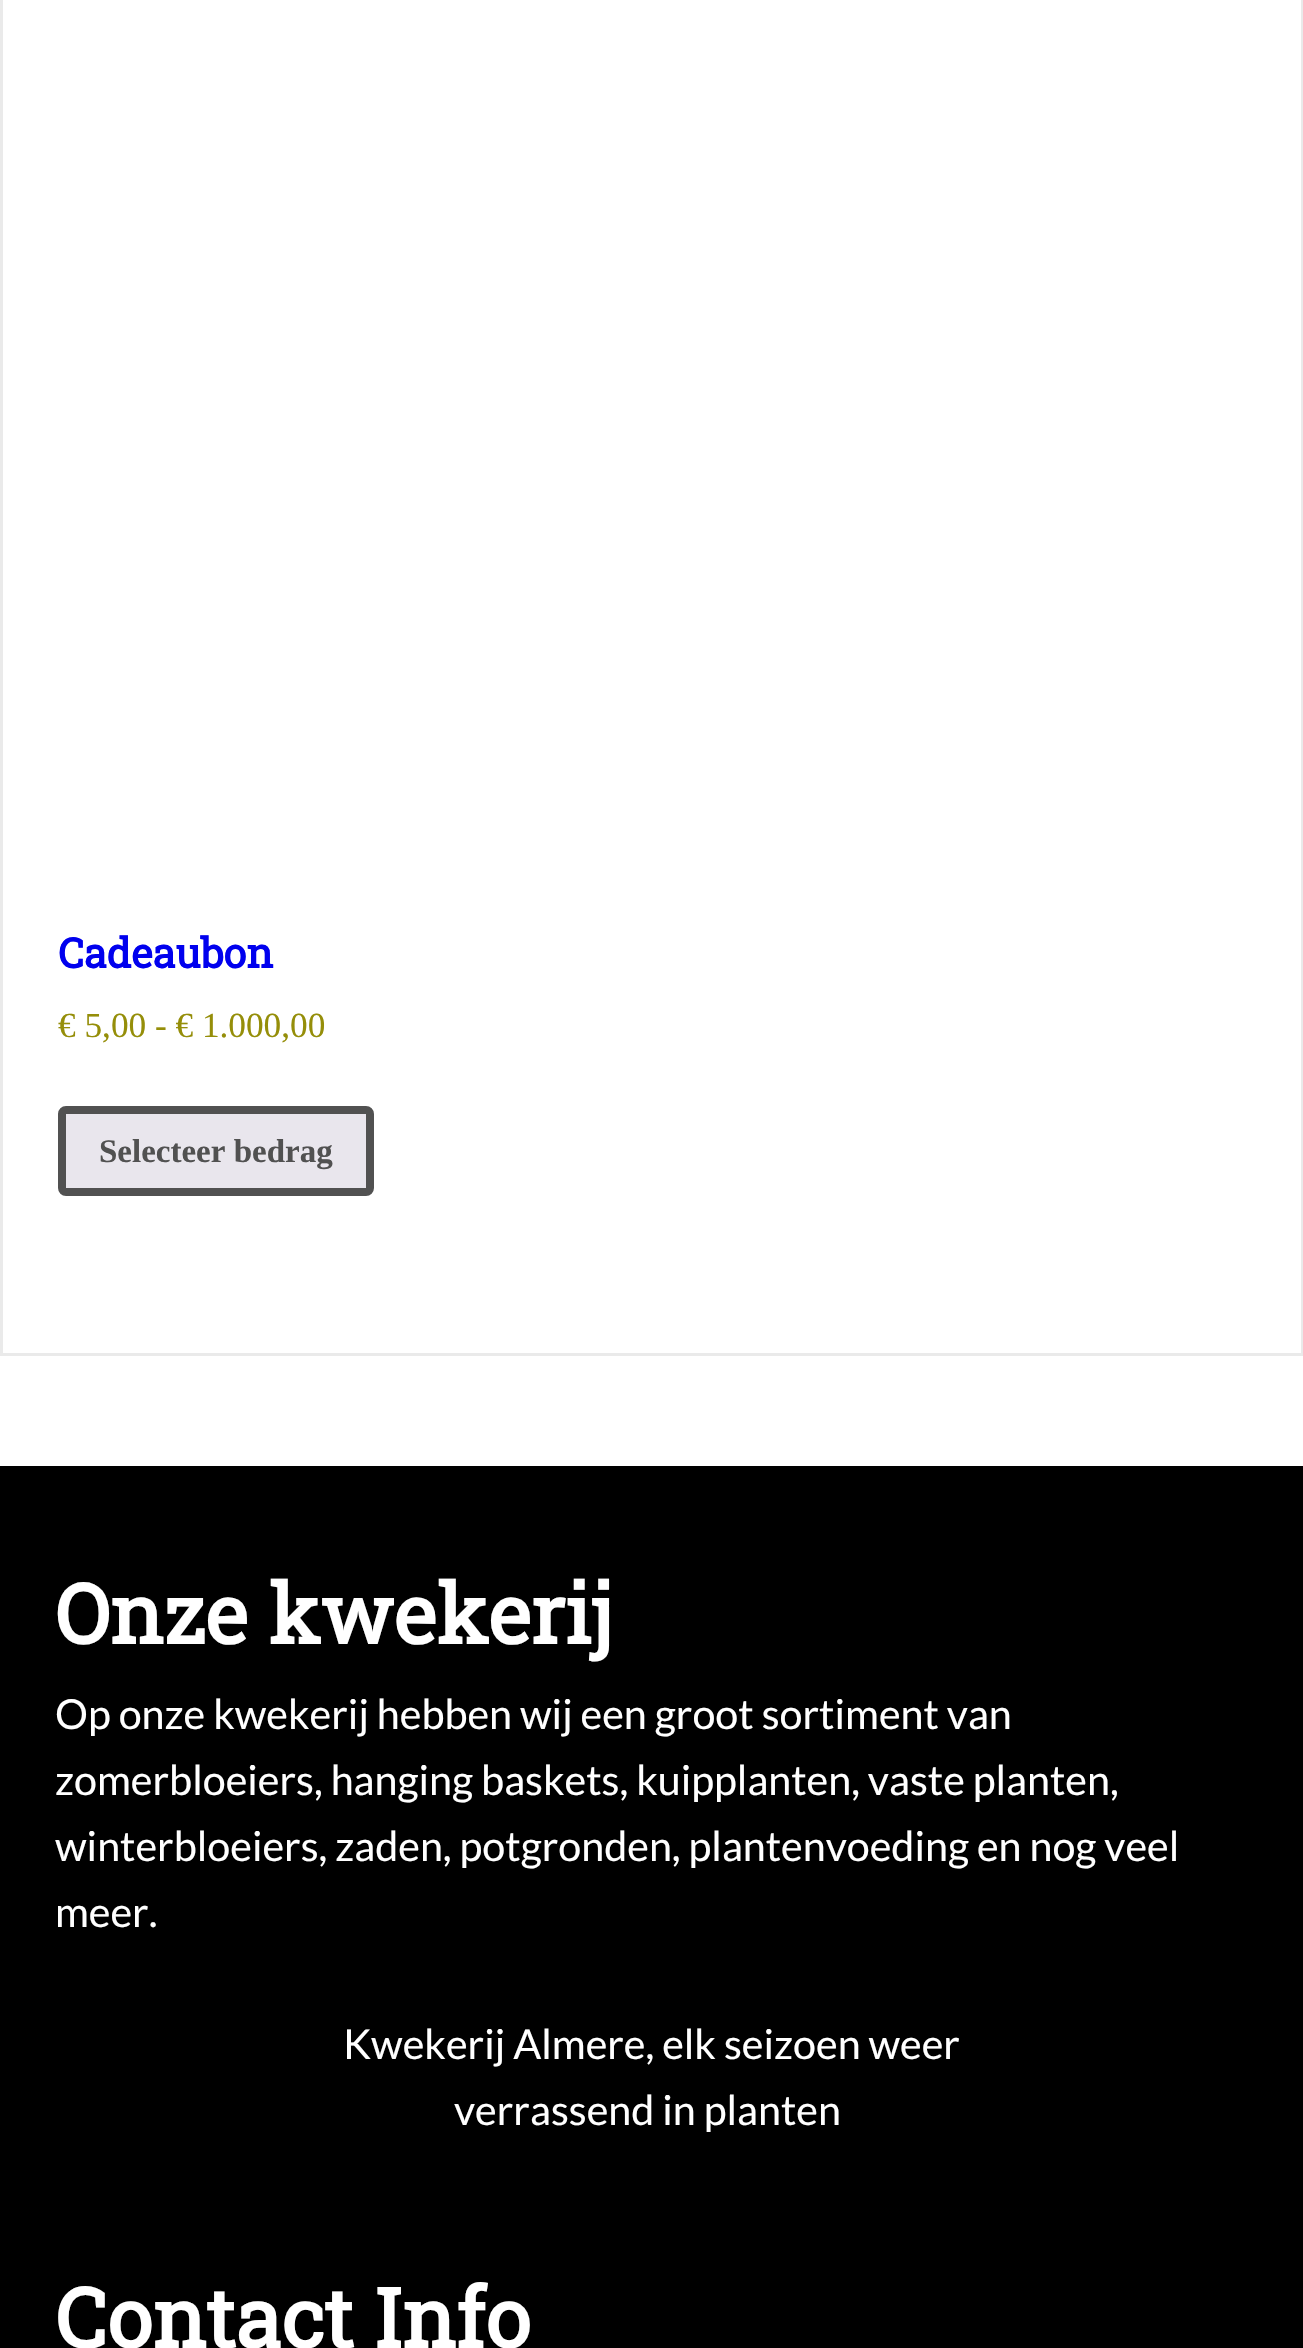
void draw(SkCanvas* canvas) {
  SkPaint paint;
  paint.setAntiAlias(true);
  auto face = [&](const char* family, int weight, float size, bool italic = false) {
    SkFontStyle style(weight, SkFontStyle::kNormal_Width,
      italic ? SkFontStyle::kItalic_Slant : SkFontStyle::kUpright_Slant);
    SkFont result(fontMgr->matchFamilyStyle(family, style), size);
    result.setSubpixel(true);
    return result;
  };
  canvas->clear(0xffffffff);
  paint.setStroke(true);
  paint.setStrokeWidth(3);
  paint.setColor(0xffeaeaea);
  canvas->drawRect(SkRect::MakeXYWH(1.5f, -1.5f, 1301, 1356), paint);
  paint.setStroke(false);
  paint.setColor(0xffe9e6ed);
  canvas->drawRoundRect(SkRect::MakeXYWH(62, 1110, 308, 82), 4, 4, paint);
  paint.setStroke(true);
  paint.setStrokeWidth(8);
  paint.setColor(0xff515151);
  canvas->drawRoundRect(SkRect::MakeXYWH(62, 1110, 308, 82), 4, 4, paint);
  paint.setStroke(false);
  paint.setColor(0xff000000);
  canvas->drawRect(SkRect::MakeXYWH(0, 1466, 1303, 882), paint);
  auto f0 = face("Roboto Slab", 700, 41.25f);
  paint.setColor(0xff0000ee);
  canvas->drawString("Cadeaubon", 58, 968, f0, paint);
  auto f1 = face("Liberation Serif", 400, 35.25f);
  paint.setColor(0xff958e09);
  canvas->drawString("€ 5,00 - € 1.000,00", 58, 1037, f1, paint);
  auto f2 = face("Liberation Serif", 700, 33);
  paint.setColor(0xff515151);
  canvas->drawString("Selecteer bedrag", 99, 1162, f2, paint);
  auto f3 = face("Roboto Slab", 700, 82.5f);
  paint.setColor(0xffffffff);
  canvas->drawString("Onze kwekerij", 55, 1644, f3, paint);
  auto f4 = face("Lato", 400, 41.25f);
  {
    const struct { const char* s; float x, y; } items[] = {
      {"Op onze kwekerij hebben wij een groot sortiment van", 55, 1729},
      {"zomerbloeiers, hanging baskets, kuipplanten, vaste planten,", 55, 1795},
      {"winterbloeiers, zaden, potgronden, plantenvoeding en nog veel", 55, 1861},
      {"meer.", 55, 1927},
      {"Kwekerij Almere, elk seizoen weer", 343, 2059},
      {"verrassend in planten", 454, 2125},
    };
    for (auto [s, x, y] : items) {
      canvas->drawString(s, x, y, f4, paint);
    }
  }
  canvas->drawString("Contact Info", 55, 2348, f3, paint);
}
